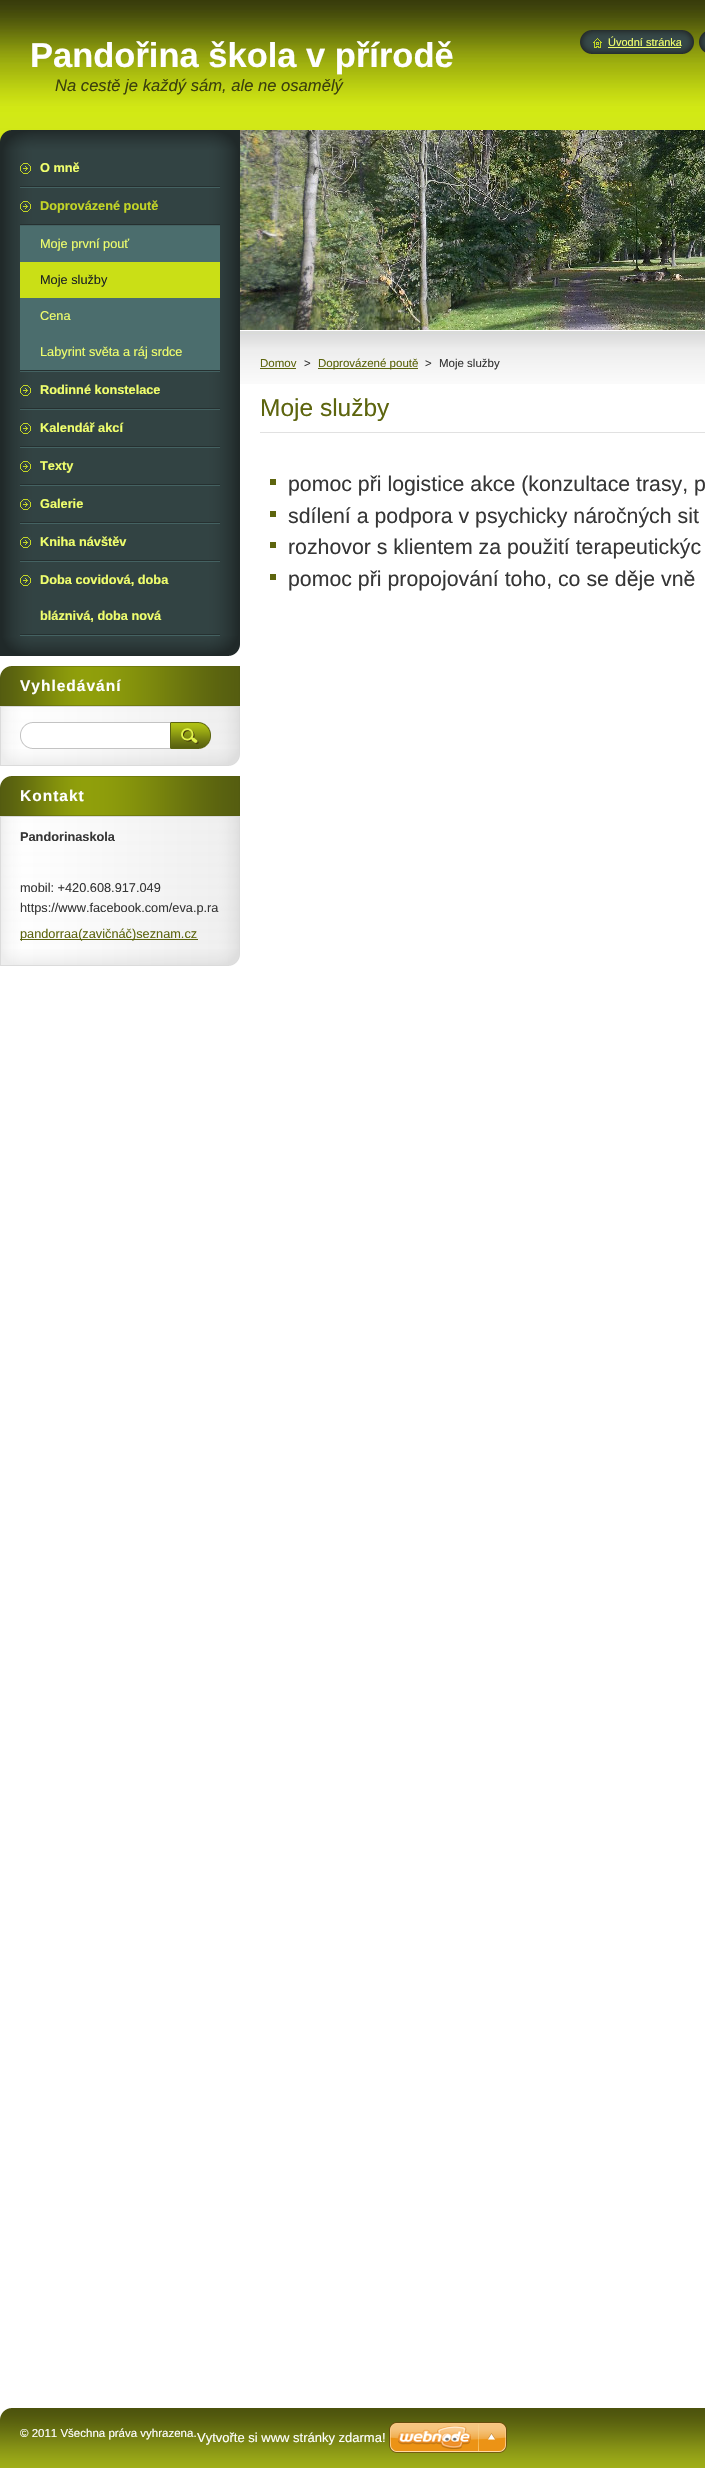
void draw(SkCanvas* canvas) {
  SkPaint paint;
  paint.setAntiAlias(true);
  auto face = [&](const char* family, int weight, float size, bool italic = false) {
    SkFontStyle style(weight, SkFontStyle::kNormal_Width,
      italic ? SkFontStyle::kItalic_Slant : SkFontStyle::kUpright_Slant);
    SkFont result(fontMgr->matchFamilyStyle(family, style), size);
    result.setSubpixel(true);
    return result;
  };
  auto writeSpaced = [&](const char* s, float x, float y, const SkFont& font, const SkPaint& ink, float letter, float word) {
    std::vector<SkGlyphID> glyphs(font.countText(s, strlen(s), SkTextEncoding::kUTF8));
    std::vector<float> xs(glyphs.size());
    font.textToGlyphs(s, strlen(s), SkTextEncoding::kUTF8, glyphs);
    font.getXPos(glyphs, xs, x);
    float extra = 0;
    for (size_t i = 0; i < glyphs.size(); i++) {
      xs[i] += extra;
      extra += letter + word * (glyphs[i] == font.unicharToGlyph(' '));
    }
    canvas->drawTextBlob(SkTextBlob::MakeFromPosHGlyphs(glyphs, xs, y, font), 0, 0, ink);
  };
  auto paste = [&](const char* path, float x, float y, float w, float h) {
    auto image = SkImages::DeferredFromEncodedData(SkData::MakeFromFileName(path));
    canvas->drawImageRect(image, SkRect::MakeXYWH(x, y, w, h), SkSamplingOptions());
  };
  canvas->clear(0xffffffff);
  paste("img/1.png", 0, 0, 705, 384);
  paste("img/2.png", 580, 30, 13, 24);
  paste("img/3.png", 593, 30, 101, 24);
  paste("img/4.png", 593, 38, 9, 10);
  paint.setColor(0xfff0ff6d);
  canvas->drawRect(SkRect::MakeXYWH(608, 47, 73, 1), paint);
  paste("img/5.png", 699, 31, 6, 22);
  paste("img/6.png", 0, 130, 240, 20);
  paste("img/7.png", 0, 636, 240, 20);
  paste("img/8.png", 0, 150, 240, 486);
  paste("img/9.png", 20, 186, 200, 2);
  paste("img/10.png", 20, 163, 11, 11);
  paste("img/9.png", 20, 370, 200, 2);
  paste("img/10.png", 20, 201, 11, 11);
  paste("img/9.png", 20, 224, 200, 2);
  {
    const struct { float x, y, w, h; SkColor color; } items[] = {
      {20, 226, 200, 36, 0xff4b6d6d},
      {20, 262, 200, 36, 0xffcadf16},
      {20, 298, 200, 72, 0xff4b6d6d},
    };
    for (auto [x, y, w, h, color] : items) {
      paint.setColor(color);
      canvas->drawRect(SkRect::MakeXYWH(x, y, w, h), paint);
    }
  }
  paste("img/9.png", 20, 408, 200, 2);
  paste("img/10.png", 20, 385, 11, 11);
  paste("img/9.png", 20, 446, 200, 2);
  paste("img/10.png", 20, 423, 11, 11);
  paste("img/9.png", 20, 484, 200, 2);
  paste("img/10.png", 20, 461, 11, 11);
  paste("img/9.png", 20, 522, 200, 2);
  paste("img/10.png", 20, 499, 11, 11);
  paste("img/9.png", 20, 560, 200, 2);
  paste("img/10.png", 20, 537, 11, 11);
  paste("img/9.png", 20, 634, 200, 2);
  paste("img/10.png", 20, 575, 11, 11);
  paste("img/11.png", 0, 749, 240, 17);
  paste("img/12.png", 0, 666, 240, 40);
  paste("img/13.png", 0, 707, 240, 42);
  paint.setColor(0xffdbdbdb);
  canvas->drawRect(SkRect::MakeXYWH(0, 706, 240, 1), paint);
  paste("img/14.png", 20, 722, 150, 27);
  paste("img/15.png", 170, 722, 41, 27);
  paste("img/11.png", 0, 949, 240, 17);
  paste("img/12.png", 0, 776, 240, 40);
  paste("img/16.png", 0, 817, 240, 132);
  canvas->drawRect(SkRect::MakeXYWH(0, 816, 240, 1), paint);
  paint.setColor(0xff5d650e);
  canvas->drawRect(SkRect::MakeXYWH(20, 939, 178, 1), paint);
  paste("img/17.png", 240, 130, 465, 200);
  {
    const struct { float x, y, w, h; SkColor color; } items[] = {
      {260, 368, 36, 1, 0xff5d650e},
      {318, 368, 100, 1, 0xff5d650e},
      {260, 432, 445, 1, 0xffe1e1e1},
      {270, 479, 6, 6, 0xff5d650e},
      {270, 511, 6, 6, 0xff5d650e},
      {270, 542, 6, 6, 0xff5d650e},
      {270, 574, 6, 6, 0xff5d650e},
    };
    for (auto [x, y, w, h, color] : items) {
      paint.setColor(color);
      canvas->drawRect(SkRect::MakeXYWH(x, y, w, h), paint);
    }
  }
  paste("img/18.png", 0, 2408, 705, 60);
  paste("img/19.png", 389, 2422, 118, 31);
  auto f0 = face("Liberation Sans", 700, 34.5f);
  paint.setColor(0xffffffff);
  canvas->drawString("Pandořina škola v přírodě", 30, 67, f0, paint);
  auto f1 = face("Liberation Sans", 400, 16.6f, true);
  paint.setColor(0xff3c410c);
  canvas->drawString("Na cestě je každý sám, ale ne osamělý", 55, 91, f1, paint);
  auto f2 = face("Liberation Sans", 400, 11);
  paint.setColor(0xfff0ff6d);
  canvas->drawString("Úvodní stránka", 608, 46, f2, paint);
  auto f3 = face("Liberation Sans", 700, 12.75f);
  canvas->drawString("O mně", 40, 172, f3, paint);
  paint.setColor(0xffc3d526);
  canvas->drawString("Doprovázené poutě", 40, 210, f3, paint);
  auto f4 = face("Liberation Sans", 400, 12.75f);
  paint.setColor(0xfff0ff6d);
  canvas->drawString("Moje první pouť", 40, 248, f4, paint);
  paint.setColor(0xff1c2222);
  canvas->drawString("Moje služby", 40, 284, f4, paint);
  paint.setColor(0xfff0ff6d);
  canvas->drawString("Cena", 40, 320, f4, paint);
  canvas->drawString("Labyrint světa a ráj srdce", 40, 356, f4, paint);
  {
    const struct { const char* s; float x, y; } items[] = {
      {"Rodinné konstelace", 40, 394},
      {"Kalendář akcí", 40, 432},
      {"Texty", 40, 470},
      {"Galerie", 40, 508},
      {"Kniha návštěv", 40, 546},
      {"Doba covidová, doba", 40, 584},
      {"bláznivá, doba nová", 40, 620},
    };
    for (auto [s, x, y] : items) {
      canvas->drawString(s, x, y, f3, paint);
    }
  }
  auto f5 = face("Liberation Sans", 700, 15.5f);
  paint.setColor(0xffffffff);
  writeSpaced("Vyhledávání", 20, 691, f5, paint, 1, 0);
  writeSpaced("Kontakt", 20, 801, f5, paint, 1, 0);
  paint.setColor(0xff363636);
  canvas->drawString("Pandorinaskola", 20, 841, f3, paint);
  canvas->drawString("mobil: +420.608.917.049", 20, 892, f4, paint);
  canvas->drawString("https://www.facebook.com/eva.p.ra", 20, 912, f4, paint);
  paint.setColor(0xff5d650e);
  canvas->drawString("pandorraa(zavičnáč)seznam.cz", 20, 938, f4, paint);
  auto f6 = face("Liberation Sans", 400, 11.5f);
  canvas->drawString("Domov", 260, 367, f6, paint);
  paint.setColor(0xff363636);
  canvas->drawString(">", 304, 367, f6, paint);
  paint.setColor(0xff5d650e);
  canvas->drawString("Doprovázené poutě", 318, 367, f6, paint);
  paint.setColor(0xff363636);
  canvas->drawString(">", 425, 367, f6, paint);
  canvas->drawString("Moje služby", 439, 367, f6, paint);
  auto f7 = face("Liberation Sans", 400, 24.5f);
  paint.setColor(0xff5d650e);
  canvas->drawString("Moje služby", 260, 416, f7, paint);
  auto f8 = face("Liberation Sans", 400, 21.3f);
  paint.setColor(0xff363636);
  {
    const struct { const char* s; float x, y; } items[] = {
      {"pomoc při logistice akce (konzultace trasy, p", 288, 491},
      {"sdílení a podpora v psychicky náročných sit", 288, 523},
      {"rozhovor s klientem za použití terapeutickýc", 288, 554},
      {"pomoc při propojování toho, co se děje vně", 288, 586},
    };
    for (auto [s, x, y] : items) {
      canvas->drawString(s, x, y, f8, paint);
    }
  }
  paint.setColor(0xffffffff);
  canvas->drawString("© 2011 Všechna práva vyhrazena.", 20, 2437, f6, paint);
  auto f9 = face("Liberation Sans", 400, 13);
  canvas->drawString("Vytvořte si www stránky zdarma!", 197, 2442, f9, paint);
}
